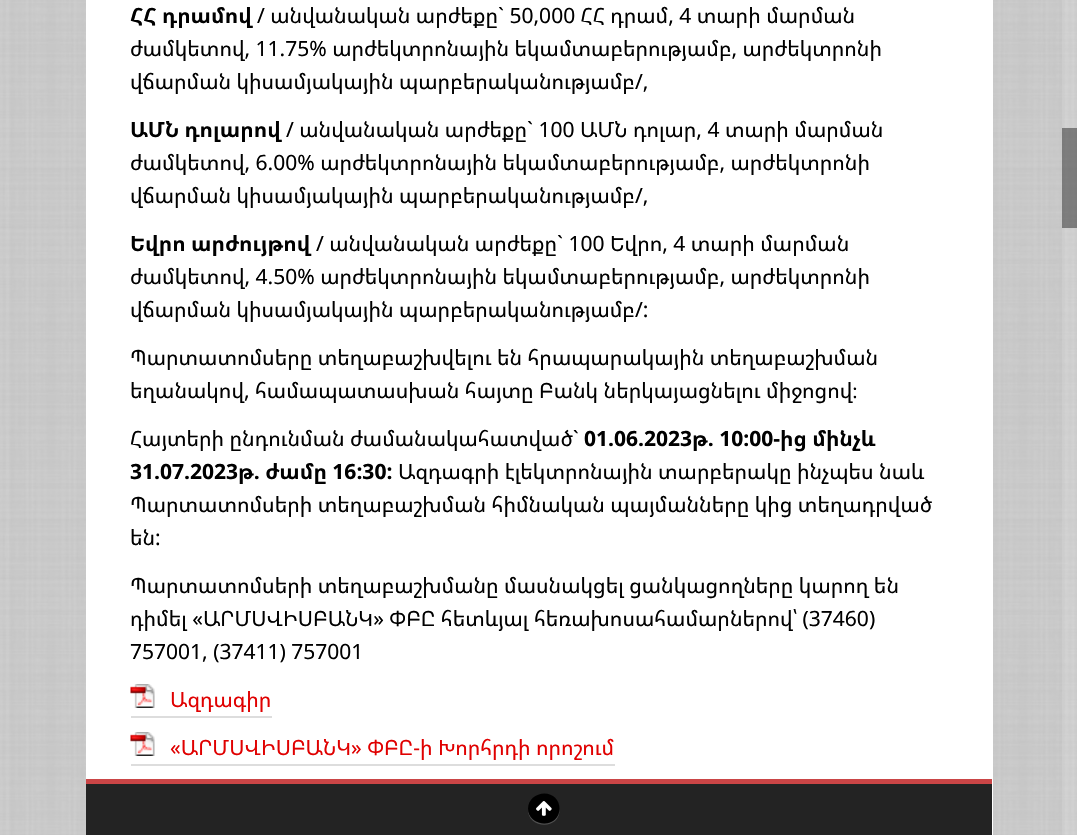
void draw(SkCanvas* canvas) {
  SkPaint paint;
  paint.setAntiAlias(true);
  auto face = [&](const char* family, int weight, float size, bool italic = false) {
    SkFontStyle style(weight, SkFontStyle::kNormal_Width,
      italic ? SkFontStyle::kItalic_Slant : SkFontStyle::kUpright_Slant);
    SkFont result(fontMgr->matchFamilyStyle(family, style), size);
    result.setSubpixel(true);
    return result;
  };
  auto paste = [&](const char* path, float x, float y, float w, float h) {
    auto image = SkImages::DeferredFromEncodedData(SkData::MakeFromFileName(path));
    canvas->drawImageRect(image, SkRect::MakeXYWH(x, y, w, h), SkSamplingOptions());
  };
  auto shape = [&](const char* data, bool evenOdd = false) {
    SkPath result = *SkParsePath::FromSVGString(data);
    if (evenOdd) result.setFillType(SkPathFillType::kEvenOdd);
    return result;
  };
  canvas->clear(0xffffffff);
  paste("img/1.png", 0, 0, 1077, 835);
  paint.setColor(0xffffffff);
  canvas->drawRect(SkRect::MakeXYWH(86, 0, 907, 835), paint);
  paste("img/2.png", 130, 684, 25, 24);
  paint.setColor(0xffdddddd);
  canvas->drawRect(SkRect::MakeXYWH(131, 716, 141, 2), paint);
  paste("img/2.png", 130, 732, 25, 24);
  {
    const struct { float x, y, w, h; SkColor color; } items[] = {
      {131, 764, 484, 2, 0xffdddddd},
      {86, 784, 906, 51, 0xff232323},
      {86, 779, 906, 5, 0xffca4546},
    };
    for (auto [x, y, w, h, color] : items) {
      paint.setColor(color);
      canvas->drawRect(SkRect::MakeXYWH(x, y, w, h), paint);
    }
  }
  paint.setColor(0xff4f4f4f);
  canvas->drawPath(shape("M528 809C527 829 560.5 831 559.5 809C558.5 828.5 529 827.5 528 809Z"), paint);
  paint.setColor(0xff000000);
  canvas->drawPath(shape("M544.5 793.5C553 793.5 559.5 800 559.5 808.5C559.5 817 553 823.5 544.5 823.5C535.5 823.5 528 817 528 808.5C528 800 535.5 793.5 544.5 793.5Z"), paint);
  paste("img/3.png", 536, 801, 16, 15);
  paint.setColor(0x1affffff);
  canvas->drawRect(SkRect::MakeXYWH(1062, 0, 15, 835), paint);
  paint.setColor(0x66000000);
  canvas->drawRect(SkRect::MakeXYWH(1062, 128, 15, 100), paint);
  auto f0 = face("Noto Sans Armenian", 700, 21);
  paint.setColor(0xff000000);
  canvas->drawString("ՀՀ դրամով", 130, 23, f0, paint);
  auto f1 = face("Noto Sans Armenian", 400, 21);
  {
    const struct { const char* s; float x, y; } items[] = {
      {"/ անվանական արժեքը` 50,000 ՀՀ դրամ, 4 տարի մարման", 257, 23},
      {"ժամկետով, 11.75% արժեկտրոնային եկամտաբերությամբ, արժեկտրոնի", 130, 56},
      {"վճարման կիսամյակային պարբերականությամբ/,", 130, 89},
    };
    for (auto [s, x, y] : items) {
      canvas->drawString(s, x, y, f1, paint);
    }
  }
  canvas->drawString("ԱՄՆ դոլարով", 130, 137, f0, paint);
  {
    const struct { const char* s; float x, y; } items[] = {
      {"/ անվանական արժեքը` 100 ԱՄՆ դոլար, 4 տարի մարման", 286, 137},
      {"ժամկետով, 6.00% արժեկտրոնային եկամտաբերությամբ, արժեկտրոնի", 130, 170},
      {"վճարման կիսամյակային պարբերականությամբ/,", 130, 203},
    };
    for (auto [s, x, y] : items) {
      canvas->drawString(s, x, y, f1, paint);
    }
  }
  canvas->drawString("Եվրո արժույթով", 130, 251, f0, paint);
  {
    const struct { const char* s; float x, y; } items[] = {
      {"/ անվանական արժեքը` 100 Եվրո, 4 տարի մարման", 316, 251},
      {"ժամկետով, 4.50% արժեկտրոնային եկամտաբերությամբ, արժեկտրոնի", 130, 284},
      {"վճարման կիսամյակային պարբերականությամբ/:", 130, 317},
      {"Պարտատոմսերը տեղաբաշխվելու են հրապարակային տեղաբաշխման", 130, 365},
      {"եղանակով, համապատասխան հայտը Բանկ ներկայացնելու միջոցով։", 130, 398},
      {"Հայտերի ընդունման ժամանակահատված`", 130, 446},
    };
    for (auto [s, x, y] : items) {
      canvas->drawString(s, x, y, f1, paint);
    }
  }
  canvas->drawString("01.06.2023թ. 10:00-ից մինչև", 584, 446, f0, paint);
  canvas->drawString("31.07.2023թ. ժամը 16:30:", 130, 479, f0, paint);
  {
    const struct { const char* s; float x, y; } items[] = {
      {"Ազդագրի էլեկտրոնային տարբերակը ինչպես նաև", 398, 479},
      {"Պարտատոմսերի տեղաբաշխման հիմնական պայմանները կից տեղադրված", 130, 512},
      {"են:", 130, 545},
      {"Պարտատոմսերի տեղաբաշխմանը մասնակցել ցանկացողները կարող են", 130, 593},
      {"դիմել «ԱՐՄՍՎԻՍԲԱՆԿ» ՓԲԸ հետևյալ հեռախոսահամարներով՝ (37460)", 130, 626},
      {"757001, (37411) 757001", 130, 659},
    };
    for (auto [s, x, y] : items) {
      canvas->drawString(s, x, y, f1, paint);
    }
  }
  paint.setColor(0xffe00000);
  canvas->drawString("Ազդագիր", 170, 707, f1, paint);
  canvas->drawString("«ԱՐՄՍՎԻՍԲԱՆԿ» ՓԲԸ-ի Խորհրդի որոշում", 170, 755, f1, paint);
}
